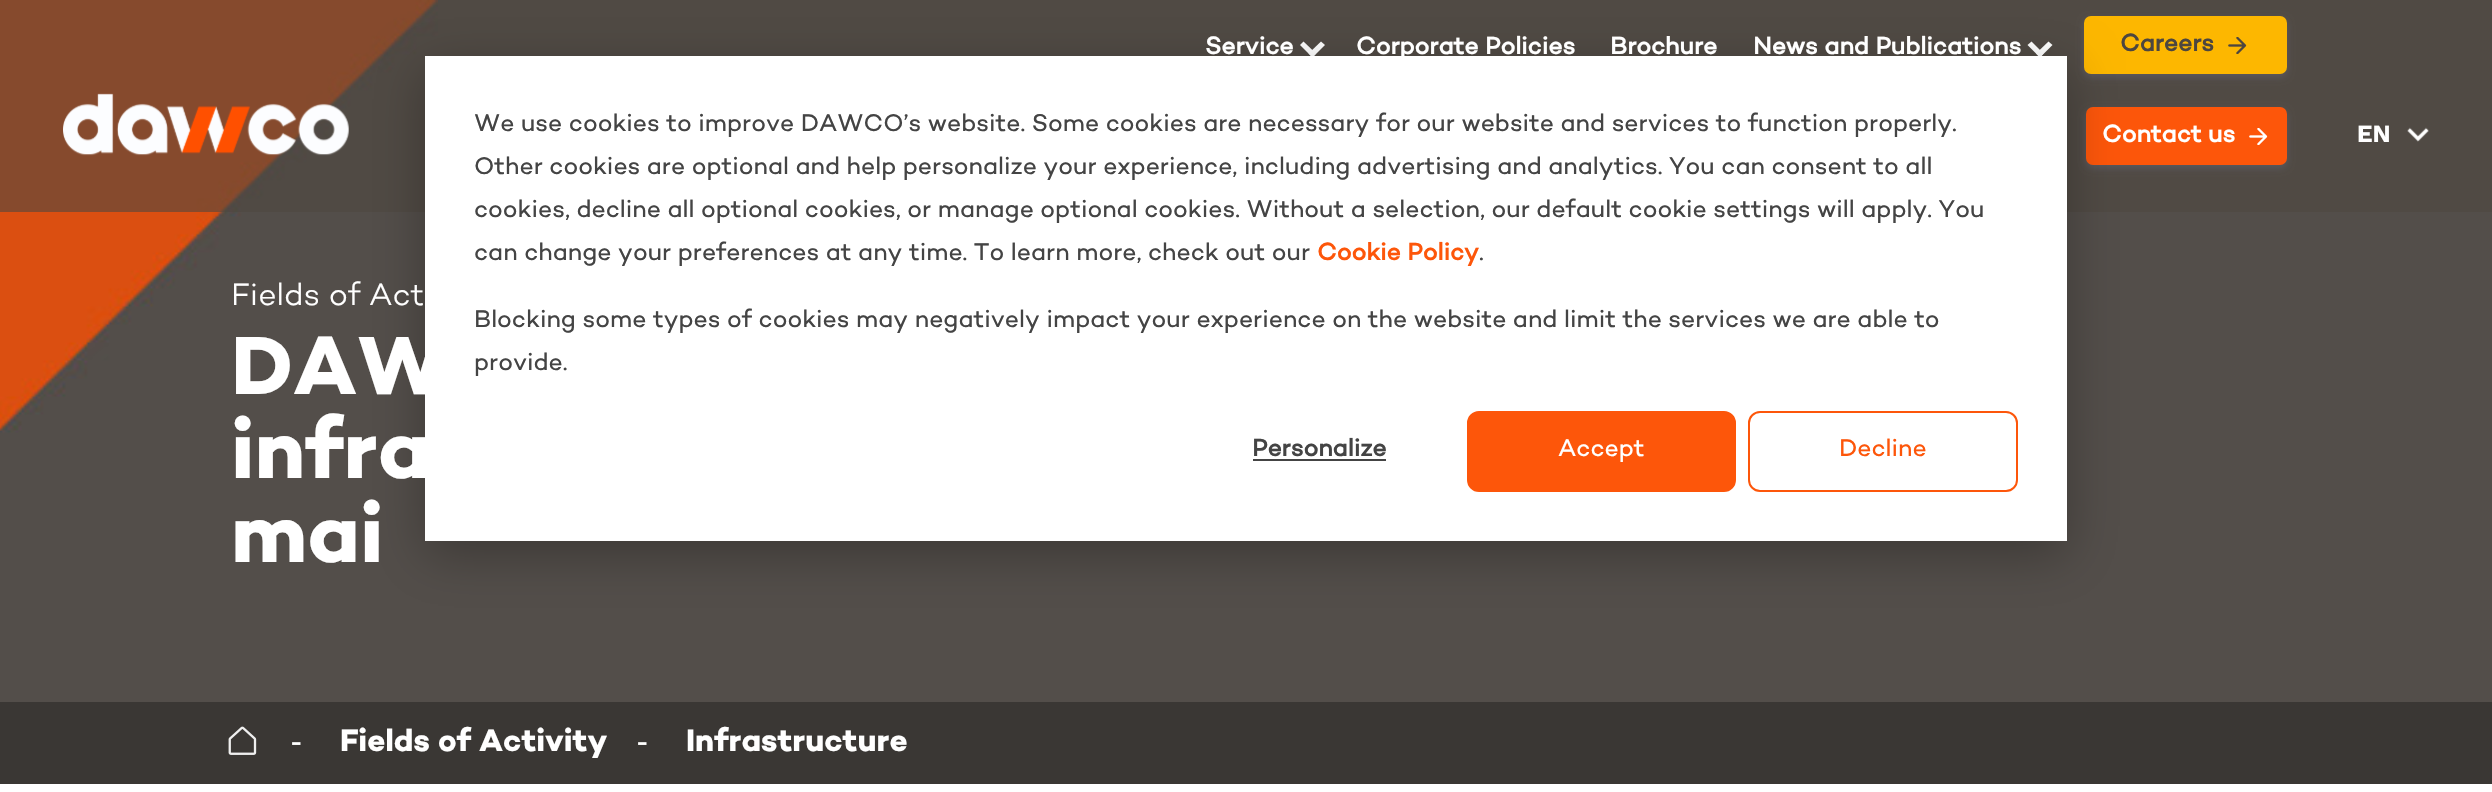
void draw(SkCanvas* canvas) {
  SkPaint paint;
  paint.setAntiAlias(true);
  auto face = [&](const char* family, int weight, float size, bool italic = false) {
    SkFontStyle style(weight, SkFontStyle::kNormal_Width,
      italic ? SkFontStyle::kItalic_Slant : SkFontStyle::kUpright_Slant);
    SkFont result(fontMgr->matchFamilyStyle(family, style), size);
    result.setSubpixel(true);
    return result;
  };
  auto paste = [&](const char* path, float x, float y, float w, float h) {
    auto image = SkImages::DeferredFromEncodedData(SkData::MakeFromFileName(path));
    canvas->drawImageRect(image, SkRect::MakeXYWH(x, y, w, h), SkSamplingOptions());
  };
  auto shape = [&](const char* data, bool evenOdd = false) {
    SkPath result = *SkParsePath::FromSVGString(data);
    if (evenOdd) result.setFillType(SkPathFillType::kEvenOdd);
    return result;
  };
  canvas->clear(0xffffffff);
  paste("img/5.png", 0, 0, 2492, 702);
  paint.setColor(0x994d463f);
  canvas->drawRect(SkRect::MakeXYWH(0, 0, 2492, 212), paint);
  paint.setColor(0xffffffff);
  canvas->drawPath(shape("M1312.5 57.5L1300 45L1303.5 41.5L1316 53.5Z"), paint);
  canvas->drawPath(shape("M1312.5 57.5L1308.5 53.5L1321 41.5L1325 45Z"), paint);
  canvas->drawPath(shape("M2040 57.5L2027.5 45L2031.5 41.5L2043.5 53.5Z"), paint);
  canvas->drawPath(shape("M2040 57.5L2036 53.5L2048.5 41.5L2052.5 45Z"), paint);
  paint.setColor(0x338890c2);
  paint.setMaskFilter(SkMaskFilter::MakeBlur(kNormal_SkBlurStyle, 3.5f));
  canvas->drawRoundRect(SkRect::MakeXYWH(2084, 19, 203, 58), 7, 7, paint);
  paint.setMaskFilter(nullptr);
  paint.setColor(0xfffdb700);
  canvas->drawRoundRect(SkRect::MakeXYWH(2084, 16, 203, 58), 7, 7, paint);
  paste("img/1.png", 2228, 37, 19, 17);
  paste("img/2.png", 63, 93, 286, 63);
  paint.setColor(0x338890c2);
  paint.setMaskFilter(SkMaskFilter::MakeBlur(kNormal_SkBlurStyle, 3.5f));
  canvas->drawRoundRect(SkRect::MakeXYWH(2086, 110, 201, 58), 7, 7, paint);
  paint.setMaskFilter(nullptr);
  paint.setColor(0xfffd560a);
  canvas->drawRoundRect(SkRect::MakeXYWH(2086, 107, 201, 58), 7, 7, paint);
  paste("img/3.png", 2249, 128, 19, 17);
  paste("img/4.png", 2407, 127, 22, 15);
  paint.setColor(0xff3a3734);
  canvas->drawRect(SkRect::MakeXYWH(0, 702, 2492, 82), paint);
  paste("img/6.png", 228, 726, 29, 29);
  paint.setColor(0x47000000);
  paint.setMaskFilter(SkMaskFilter::MakeBlur(kNormal_SkBlurStyle, 24.5f));
  canvas->drawRect(SkRect::MakeXYWH(425, 70, 1642, 485), paint);
  paint.setMaskFilter(nullptr);
  paint.setColor(0xffffffff);
  canvas->drawRect(SkRect::MakeXYWH(425, 56, 1642, 485), paint);
  paint.setColor(0xff444444);
  canvas->drawRect(SkRect::MakeXYWH(1253, 459, 133, 2), paint);
  paint.setColor(0xfffd560a);
  canvas->drawRoundRect(SkRect::MakeXYWH(1468, 412, 267, 79), 11, 11, paint);
  paint.setStroke(true);
  paint.setStrokeWidth(2);
  canvas->drawRoundRect(SkRect::MakeXYWH(1468, 412, 267, 79), 11, 11, paint);
  canvas->drawRoundRect(SkRect::MakeXYWH(1749, 412, 268, 79), 11, 11, paint);
  auto f0 = face("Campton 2", 700, 24.5f);
  paint.setStroke(false);
  paint.setColor(0xffffffff);
  {
    const struct { const char* s; float x, y; } items[] = {
      {"Service", 1205, 54},
      {"Corporate Policies", 1356, 54},
      {"Brochure", 1610, 54},
      {"News and Publications", 1753, 54},
    };
    for (auto [s, x, y] : items) {
      canvas->drawString(s, x, y, f0, paint);
    }
  }
  paint.setColor(0xff4d463f);
  canvas->drawString("Careers", 2120, 51, f0, paint);
  paint.setColor(0xffffffff);
  canvas->drawString("Contact us", 2102, 142, f0, paint);
  auto f1 = face("Work Sans", 700, 24.5f);
  canvas->drawString("EN", 2357, 142, f1, paint);
  auto f2 = face("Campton", 300, 31.5f);
  canvas->drawString("Fields of Act", 231, 305, f2, paint);
  auto f3 = face("Campton", 700, 84);
  {
    const struct { const char* s; float x, y; } items[] = {
      {"DAW", 231, 394},
      {"infra", 231, 478},
      {"mai", 231, 562},
    };
    for (auto [s, x, y] : items) {
      canvas->drawString(s, x, y, f3, paint);
    }
  }
  auto f4 = face("Liberation Serif", 700, 31.5f);
  canvas->drawString("‐", 291, 751, f4, paint);
  auto f5 = face("Campton", 700, 31.5f);
  canvas->drawString("Fields of Activity", 340, 751, f5, paint);
  canvas->drawString("‐", 637, 751, f4, paint);
  canvas->drawString("Infrastructure", 686, 751, f5, paint);
  auto f6 = face("Campton", 400, 24.5f);
  paint.setColor(0xff444444);
  {
    const struct { const char* s; float x, y; } items[] = {
      {"We use cookies to improve DAWCO’s website. Some cookies are necessary for our website and services to function properly.", 474, 131},
      {"Other cookies are optional and help personalize your experience, including advertising and analytics. You can consent to all", 474, 174},
      {"cookies, decline all optional cookies, or manage optional cookies. Without a selection, our default cookie settings will apply. You", 474, 217},
      {"can change your preferences at any time. To learn more, check out our", 474, 260},
    };
    for (auto [s, x, y] : items) {
      canvas->drawString(s, x, y, f6, paint);
    }
  }
  paint.setColor(0xfffd560a);
  canvas->drawString("Cookie Policy", 1317, 260, f0, paint);
  paint.setColor(0xff444444);
  {
    const struct { const char* s; float x, y; } items[] = {
      {".", 1479, 260},
      {"Blocking some types of cookies may negatively impact your experience on the website and limit the services we are able to", 474, 327},
      {"provide.", 474, 370},
    };
    for (auto [s, x, y] : items) {
      canvas->drawString(s, x, y, f6, paint);
    }
  }
  canvas->drawString("Personalize", 1252, 456, f0, paint);
  paint.setColor(0xffffffff);
  canvas->drawString("Accept", 1558, 456, f6, paint);
  paint.setColor(0xfffd560a);
  canvas->drawString("Decline", 1839, 456, f6, paint);
}
